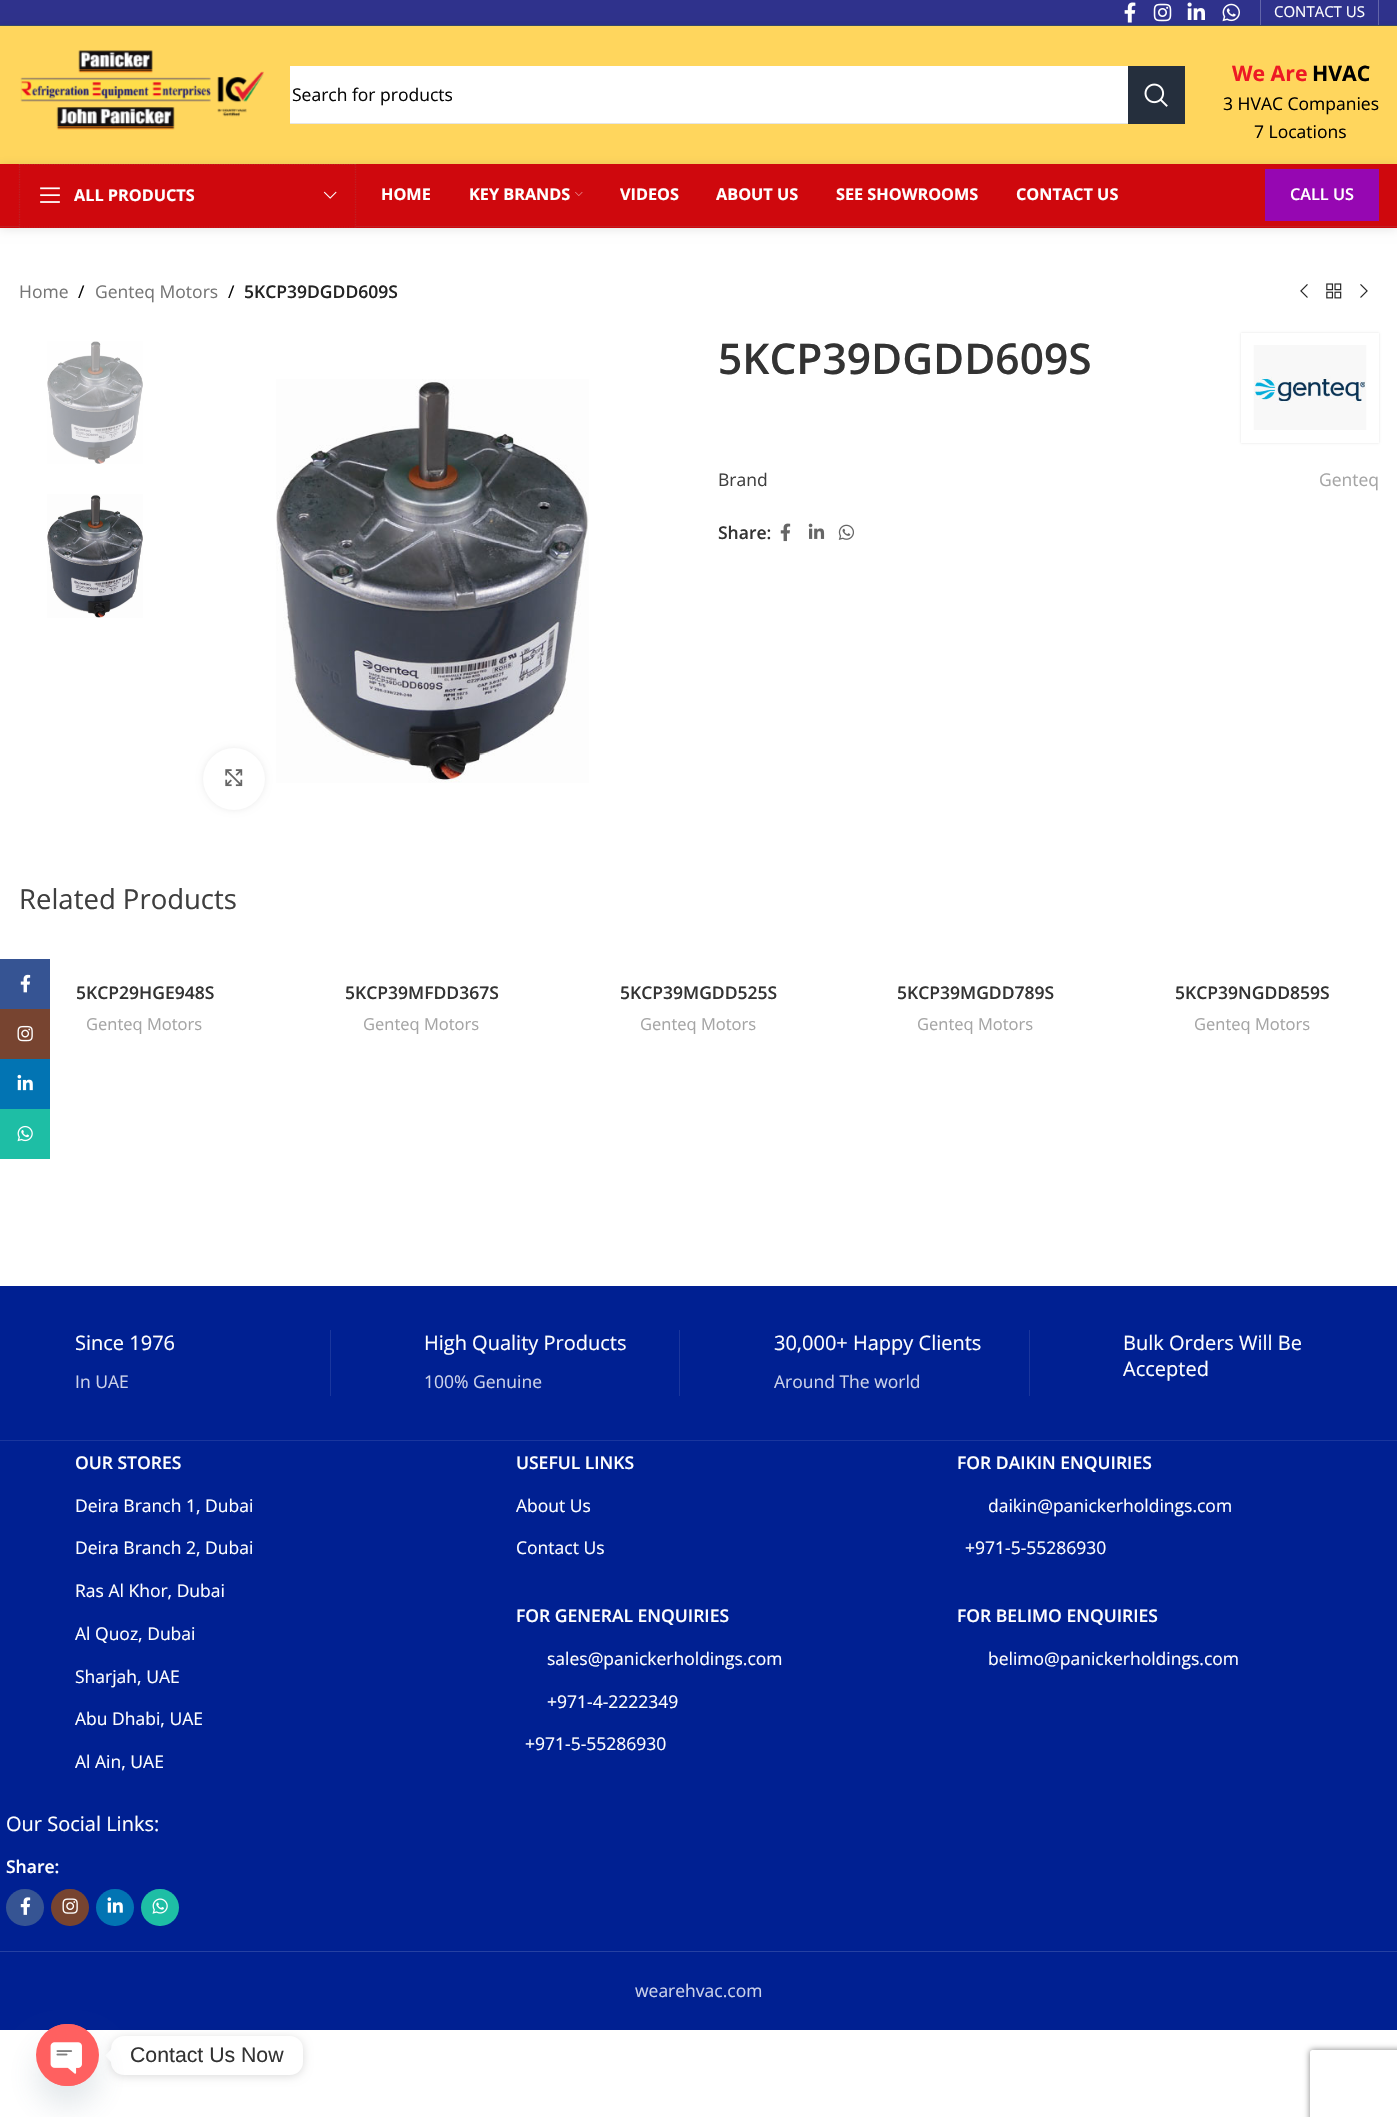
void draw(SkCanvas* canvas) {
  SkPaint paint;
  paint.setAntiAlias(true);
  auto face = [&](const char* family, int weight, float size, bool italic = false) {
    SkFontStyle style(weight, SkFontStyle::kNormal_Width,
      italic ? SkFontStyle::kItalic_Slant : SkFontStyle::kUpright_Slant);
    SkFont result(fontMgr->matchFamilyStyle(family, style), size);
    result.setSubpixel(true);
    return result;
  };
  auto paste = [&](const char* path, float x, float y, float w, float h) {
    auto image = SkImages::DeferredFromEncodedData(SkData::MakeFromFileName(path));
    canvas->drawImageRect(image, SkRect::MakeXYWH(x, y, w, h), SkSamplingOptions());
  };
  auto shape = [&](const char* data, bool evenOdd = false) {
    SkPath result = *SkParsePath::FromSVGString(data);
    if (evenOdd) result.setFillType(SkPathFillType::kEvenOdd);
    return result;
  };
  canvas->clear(0xffffffff);
  paint.setColor(0xff2f328c);
  canvas->drawRect(SkRect::MakeXYWH(0, 0, 1397, 25), paint);
  paint.setColor(0xff3a4d69);
  canvas->drawRect(SkRect::MakeXYWH(0, 25, 1397, 1), paint);
  paint.setColor(0x1a000000);
  paint.setMaskFilter(SkMaskFilter::MakeBlur(kNormal_SkBlurStyle, 5));
  canvas->drawRect(SkRect::MakeXYWH(0, 28, 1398, 137), paint);
  paint.setMaskFilter(nullptr);
  paste("img/1.png", 1124, 2, 12, 21);
  paste("img/2.png", 1153, 3, 19, 19);
  paste("img/3.png", 1187, 2, 18, 18);
  paste("img/4.png", 1222, 3, 18, 19);
  {
    const struct { float x, y, w, h; SkColor color; } items[] = {
      {1260, 0, 1, 25, 0x40ffffff},
      {1378, 0, 1, 25, 0x40ffffff},
      {0, 26, 1397, 138, 0xffffd65d},
    };
    for (auto [x, y, w, h, color] : items) {
      paint.setColor(color);
      canvas->drawRect(SkRect::MakeXYWH(x, y, w, h), paint);
    }
  }
  paste("img/5.png", 20, 50, 244, 80);
  {
    const struct { float x, y, w, h; SkColor color; } items[] = {
      {290, 66, 838, 57, 0xffffffff},
      {290, 123, 838, 1, 0xffe6e6e6},
      {1128, 66, 57, 58, 0xff252f3d},
    };
    for (auto [x, y, w, h, color] : items) {
      paint.setColor(color);
      canvas->drawRect(SkRect::MakeXYWH(x, y, w, h), paint);
    }
  }
  paste("img/6.png", 1144, 83, 24, 24);
  paint.setColor(0x1a000000);
  paint.setMaskFilter(SkMaskFilter::MakeBlur(kNormal_SkBlurStyle, 5));
  canvas->drawRect(SkRect::MakeXYWH(0, 165, 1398, 64), paint);
  paint.setMaskFilter(nullptr);
  {
    const struct { float x, y, w, h; SkColor color; } items[] = {
      {0, 164, 1397, 64, 0xffcf080d},
      {0, 226, 1397, 1, 0xffbf2024},
      {19, 226, 337, 1, 0xffcf080d},
    };
    for (auto [x, y, w, h, color] : items) {
      paint.setColor(color);
      canvas->drawRect(SkRect::MakeXYWH(x, y, w, h), paint);
    }
  }
  paint.setStroke(true);
  paint.setStrokeWidth(1.2f);
  paint.setColor(0xffbf2024);
  paint.setPathEffect(SkDashPathEffect::Make({{1.25f, 1.25f}}, 0));
  canvas->drawPath(shape("M19 164.5H356"), paint);
  paint.setPathEffect(nullptr);
  paint.setColor(0x33818181);
  paint.setPathEffect(SkDashPathEffect::Make({{1.25f, 1.25f}}, 0));
  canvas->drawPath(shape("M355.5 164V227.5"), paint);
  paint.setPathEffect(nullptr);
  paint.setColor(0xffbf2024);
  paint.setPathEffect(SkDashPathEffect::Make({{1.25f, 1.25f}}, 0));
  canvas->drawPath(shape("M19 227H356"), paint);
  paint.setPathEffect(nullptr);
  paint.setColor(0x33818181);
  paint.setPathEffect(SkDashPathEffect::Make({{1.25f, 1.25f}}, 0));
  canvas->drawPath(shape("M19.5 164V227.5"), paint);
  paint.setPathEffect(nullptr);
  paste("img/7.png", 40, 187, 20, 16);
  paste("img/8.png", 323, 191, 14, 8);
  paste("img/9.png", 575, 192, 8, 4);
  paint.setStroke(false);
  paint.setColor(0xff9607b2);
  canvas->drawRect(SkRect::MakeXYWH(1265, 169, 114, 52), paint);
  paste("img/10.png", 1300, 284, 8, 14);
  paste("img/11.png", 1326, 283, 16, 16);
  paste("img/12.png", 1360, 284, 8, 14);
  paste("img/13.png", 47, 341, 96, 123);
  paste("img/14.png", 47, 494, 96, 124);
  paint.setColor(0x14000000);
  paint.setMaskFilter(SkMaskFilter::MakeBlur(kNormal_SkBlurStyle, 3));
  canvas->drawRoundRect(SkRect::MakeXYWH(203, 748, 62, 62), 31, 31, paint);
  paint.setMaskFilter(nullptr);
  paint.setColor(0xffffffff);
  canvas->drawCircle(234, 779, 31, paint);
  paste("img/15.png", 225, 769, 18, 18);
  paste("img/16.png", 276, 379, 313, 404);
  paint.setColor(0x1f000000);
  paint.setMaskFilter(SkMaskFilter::MakeBlur(kNormal_SkBlurStyle, 1));
  canvas->drawRect(SkRect::MakeXYWH(1241, 333, 138, 110), paint);
  paint.setMaskFilter(nullptr);
  paint.setColor(0xffffffff);
  canvas->drawRect(SkRect::MakeXYWH(1241, 333, 138, 110), paint);
  paste("img/17.png", 1253, 345, 114, 85);
  paste("img/18.png", 780, 523, 11, 19);
  paste("img/19.png", 808, 523, 17, 16);
  paste("img/20.png", 838, 524, 16, 16);
  {
    const struct { float x, y, w, h; SkColor color; } items[] = {
      {0, 1286, 1397, 744, 0xff002092},
      {0, 1440, 1397, 1, 0xff1a369d},
      {330, 1330, 1, 66, 0xff1a369d},
      {679, 1330, 1, 66, 0xff1a369d},
      {1029, 1330, 1, 66, 0xff1a369d},
    };
    for (auto [x, y, w, h, color] : items) {
      paint.setColor(color);
      canvas->drawRect(SkRect::MakeXYWH(x, y, w, h), paint);
    }
  }
  paint.setColor(0xff365493);
  canvas->drawRoundRect(SkRect::MakeXYWH(6, 1889, 38, 37), 18.5f, 18.5f, paint);
  paste("img/21.png", 20, 1897, 11, 18);
  paint.setColor(0xff774430);
  canvas->drawRoundRect(SkRect::MakeXYWH(51, 1889, 38, 37), 18.5f, 18.5f, paint);
  paste("img/22.png", 62, 1898, 16, 16);
  paint.setColor(0xff0274b3);
  canvas->drawRoundRect(SkRect::MakeXYWH(96, 1889, 38, 37), 18.5f, 18.5f, paint);
  paste("img/23.png", 107, 1897, 16, 16);
  paint.setColor(0xff1ebea5);
  canvas->drawRoundRect(SkRect::MakeXYWH(141, 1889, 38, 37), 18.5f, 18.5f, paint);
  paste("img/24.png", 152, 1898, 16, 16);
  paint.setColor(0xff2641a2);
  canvas->drawRect(SkRect::MakeXYWH(0, 1951, 1397, 1), paint);
  paint.setColor(0xff365493);
  canvas->drawRect(SkRect::MakeXYWH(0, 959, 50, 50), paint);
  paste("img/25.png", 20, 974, 11, 19);
  paint.setColor(0xff774430);
  canvas->drawRect(SkRect::MakeXYWH(0, 1009, 50, 50), paint);
  paste("img/26.png", 17, 1025, 16, 17);
  paint.setColor(0xff0274b3);
  canvas->drawRect(SkRect::MakeXYWH(0, 1059, 50, 50), paint);
  paste("img/27.png", 17, 1074, 16, 17);
  paint.setColor(0xff1ebea5);
  canvas->drawRect(SkRect::MakeXYWH(0, 1109, 50, 50), paint);
  paste("img/28.png", 17, 1125, 16, 17);
  paint.setColor(0x26000000);
  paint.setMaskFilter(SkMaskFilter::MakeBlur(kNormal_SkBlurStyle, 5));
  canvas->drawRoundRect(SkRect::MakeXYWH(111, 2038, 192, 38), 13, 13, paint);
  paint.setMaskFilter(nullptr);
  paint.setColor(0xffffffff);
  canvas->drawRoundRect(SkRect::MakeXYWH(111, 2036, 192, 39), 13, 13, paint);
  canvas->drawPath(shape("M111 2049.5V2062L105 2055.5Z"), paint);
  paint.setColor(0x2949687e);
  paint.setMaskFilter(SkMaskFilter::MakeBlur(kNormal_SkBlurStyle, 15));
  canvas->drawRoundRect(SkRect::MakeXYWH(36, 2044, 63, 62), 31, 31, paint);
  paint.setMaskFilter(nullptr);
  paint.setColor(0xffff6060);
  canvas->drawRoundRect(SkRect::MakeXYWH(36, 2024, 63, 62), 31, 31, paint);
  paste("img/29.png", 49, 2024, 37, 62);
  canvas->save();
  canvas->clipPath(shape("M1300 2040H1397V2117H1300ZM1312.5 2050H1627.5C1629 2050 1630 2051 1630 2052.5V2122.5C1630 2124 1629 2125 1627.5 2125H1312.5C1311 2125 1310 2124 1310 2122.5V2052.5C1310 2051 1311 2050 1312.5 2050Z", true), true);
  paint.setColor(0xff808080);
  paint.setMaskFilter(SkMaskFilter::MakeBlur(kNormal_SkBlurStyle, 3));
  canvas->drawRoundRect(SkRect::MakeXYWH(1310, 2050, 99, 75), 2.5f, 2.5f, paint);
  paint.setMaskFilter(nullptr);
  canvas->restore();
  auto f0 = face("Open Sans", 400, 15);
  paint.setColor(0xffffffff);
  canvas->drawString("CONTACT US", 1274, 17, f0, paint);
  auto f1 = face("Open Sans", 400, 17.5f);
  paint.setColor(0xff070707);
  canvas->drawString("Search for products", 292, 101, f1, paint);
  auto f2 = face("Open Sans", 700, 21.25f);
  paint.setColor(0xffed1a24);
  canvas->drawString("We Are", 1232, 81, f2, paint);
  paint.setColor(0xff000000);
  canvas->drawString("HVAC", 1312, 81, f2, paint);
  canvas->drawString("3 HVAC Companies", 1223, 110, f1, paint);
  canvas->drawString("7 Locations", 1254, 138, f1, paint);
  auto f3 = face("Open Sans", 700, 16.25f);
  paint.setColor(0xffffffff);
  {
    const struct { const char* s; float x, y; } items[] = {
      {"ALL PRODUCTS", 74, 201},
      {"HOME", 381, 200},
      {"KEY BRANDS", 469, 200},
      {"VIDEOS", 620, 200},
      {"ABOUT US", 716, 200},
      {"SEE SHOWROOMS", 836, 200},
      {"CONTACT US", 1016, 200},
    };
    for (auto [s, x, y] : items) {
      canvas->drawString(s, x, y, f3, paint);
    }
  }
  auto f4 = face("Open Sans", 600, 16.25f);
  canvas->drawString("CALL US", 1290, 200, f4, paint);
  paint.setColor(0xff767676);
  canvas->drawString("Home", 19, 298, f1, paint);
  paint.setColor(0xff070707);
  canvas->drawString("/", 78, 298, f1, paint);
  paint.setColor(0xff767676);
  canvas->drawString("Genteq Motors", 95, 298, f1, paint);
  paint.setColor(0xff070707);
  canvas->drawString("/", 228, 298, f1, paint);
  auto f5 = face("Open Sans", 600, 17.5f);
  paint.setColor(0xff242424);
  canvas->drawString("5KCP39DGDD609S", 244, 298, f5, paint);
  auto f6 = face("Open Sans", 600, 42.5f);
  paint.setColor(0xff333333);
  canvas->drawString("5KCP39DGDD609S", 718, 374, f6, paint);
  paint.setColor(0xff3f3f3f);
  canvas->drawString("Brand", 718, 486, f1, paint);
  paint.setColor(0xffa5a5a5);
  canvas->drawString("Genteq", 1319, 486, f1, paint);
  paint.setColor(0xff333333);
  canvas->drawString("Share:", 718, 539, f5, paint);
  auto f7 = face("Open Sans", 400, 27.5f);
  paint.setColor(0xff3f3f3f);
  canvas->drawString("Related Products", 19, 909, f7, paint);
  paint.setColor(0xff333333);
  canvas->drawString("5KCP29HGE948S", 76, 999, f5, paint);
  auto f8 = face("Open Sans", 400, 16.5f);
  paint.setColor(0xffa5a5a5);
  canvas->drawString("Genteq Motors", 86, 1030, f8, paint);
  paint.setColor(0xff333333);
  canvas->drawString("5KCP39MFDD367S", 345, 999, f5, paint);
  paint.setColor(0xffa5a5a5);
  canvas->drawString("Genteq Motors", 363, 1030, f8, paint);
  paint.setColor(0xff333333);
  canvas->drawString("5KCP39MGDD525S", 620, 999, f5, paint);
  paint.setColor(0xffa5a5a5);
  canvas->drawString("Genteq Motors", 640, 1030, f8, paint);
  paint.setColor(0xff333333);
  canvas->drawString("5KCP39MGDD789S", 897, 999, f5, paint);
  paint.setColor(0xffa5a5a5);
  canvas->drawString("Genteq Motors", 917, 1030, f8, paint);
  paint.setColor(0xff333333);
  canvas->drawString("5KCP39NGDD859S", 1175, 999, f5, paint);
  paint.setColor(0xffa5a5a5);
  canvas->drawString("Genteq Motors", 1194, 1030, f8, paint);
  auto f9 = face("Open Sans", 400, 20);
  paint.setColor(0xffffffff);
  canvas->drawString("Since 1976", 75, 1350, f9, paint);
  paint.setColor(0xffccd2e9);
  canvas->drawString("In UAE", 75, 1388, f1, paint);
  paint.setColor(0xffffffff);
  canvas->drawString("High Quality Products", 424, 1350, f9, paint);
  paint.setColor(0xffccd2e9);
  canvas->drawString("100% Genuine", 424, 1388, f1, paint);
  paint.setColor(0xffffffff);
  canvas->drawString("30,000+ Happy Clients", 774, 1350, f9, paint);
  paint.setColor(0xffccd2e9);
  canvas->drawString("Around The world", 774, 1388, f1, paint);
  paint.setColor(0xffffffff);
  canvas->drawString("Bulk Orders Will Be", 1123, 1350, f9, paint);
  canvas->drawString("Accepted", 1123, 1376, f9, paint);
  canvas->drawString("OUR STORES", 75, 1469, f5, paint);
  {
    const struct { const char* s; float x, y; } items[] = {
      {"Deira Branch 1, Dubai", 75, 1512},
      {"Deira Branch 2, Dubai", 75, 1554},
      {"Ras Al Khor, Dubai", 75, 1597},
      {"Al Quoz, Dubai", 75, 1640},
      {"Sharjah, UAE", 75, 1683},
      {"Abu Dhabi, UAE", 75, 1725},
      {"Al Ain, UAE", 75, 1768},
    };
    for (auto [s, x, y] : items) {
      canvas->drawString(s, x, y, f1, paint);
    }
  }
  canvas->drawString("USEFUL LINKS", 516, 1469, f5, paint);
  canvas->drawString("About Us", 516, 1512, f1, paint);
  canvas->drawString("Contact Us", 516, 1554, f1, paint);
  canvas->drawString("FOR GENERAL ENQUIRIES", 516, 1622, f5, paint);
  {
    const struct { const char* s; float x, y; } items[] = {
      {"sales@panickerholdings.com", 547, 1665},
      {"+971-4-2222349", 547, 1708},
      {"+971-5-55286930", 525, 1750},
    };
    for (auto [s, x, y] : items) {
      canvas->drawString(s, x, y, f1, paint);
    }
  }
  canvas->drawString("FOR DAIKIN ENQUIRIES", 957, 1469, f5, paint);
  canvas->drawString("daikin@panickerholdings.com", 988, 1512, f1, paint);
  canvas->drawString("+971-5-55286930", 965, 1554, f1, paint);
  canvas->drawString("FOR BELIMO ENQUIRIES", 957, 1622, f5, paint);
  canvas->drawString("belimo@panickerholdings.com", 988, 1665, f1, paint);
  canvas->drawString("Our Social Links:", 6, 1831, f9, paint);
  canvas->drawString("Share:", 6, 1873, f5, paint);
  paint.setColor(0xffccd2e9);
  canvas->drawString("wearehvac.com", 635, 1997, f1, paint);
  auto f10 = face("Liberation Sans", 400, 21.25f);
  paint.setColor(0xff333333);
  canvas->drawString("Contact Us Now", 130, 2062, f10, paint);
}
